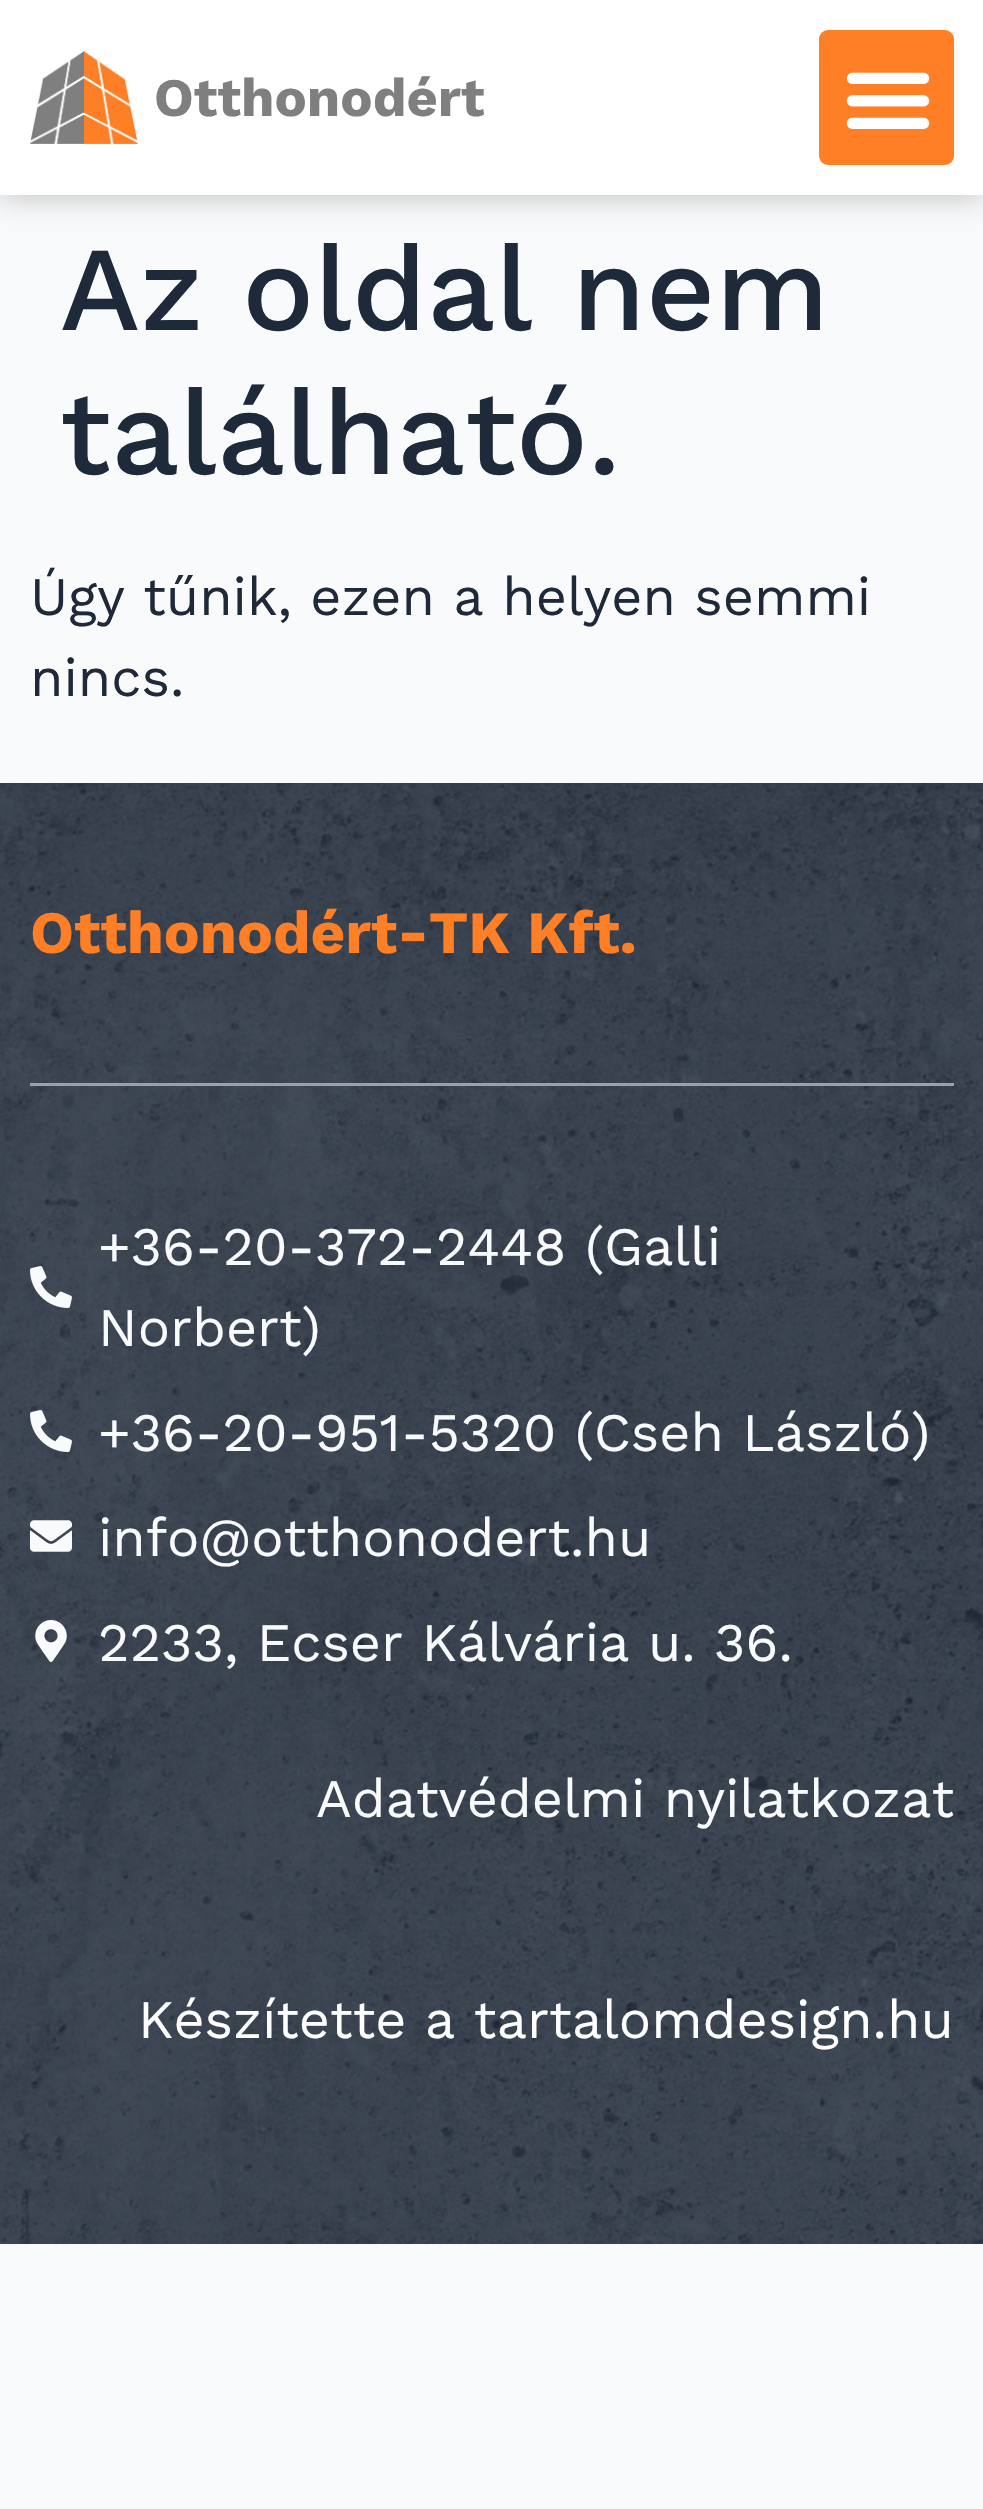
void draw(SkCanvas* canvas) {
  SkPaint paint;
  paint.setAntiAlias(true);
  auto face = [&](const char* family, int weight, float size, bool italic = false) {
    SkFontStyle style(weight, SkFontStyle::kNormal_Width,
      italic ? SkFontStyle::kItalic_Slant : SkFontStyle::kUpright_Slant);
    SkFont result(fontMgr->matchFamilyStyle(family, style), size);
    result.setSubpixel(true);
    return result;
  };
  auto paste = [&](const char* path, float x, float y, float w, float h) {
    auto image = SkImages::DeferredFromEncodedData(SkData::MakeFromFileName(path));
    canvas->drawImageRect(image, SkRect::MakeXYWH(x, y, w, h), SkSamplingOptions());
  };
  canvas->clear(0xfff9fafb);
  paint.setColor(0x40000000);
  paint.setMaskFilter(SkMaskFilter::MakeBlur(kNormal_SkBlurStyle, 15));
  canvas->drawRect(SkRect::MakeXYWH(0, 0, 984, 195), paint);
  paint.setMaskFilter(nullptr);
  paint.setColor(0xffffffff);
  canvas->drawRect(SkRect::MakeXYWH(0, 0, 983, 195), paint);
  paste("img/1.png", 30, 51, 108, 93);
  paint.setColor(0xfffe7f26);
  canvas->drawRoundRect(SkRect::MakeXYWH(819, 30, 135, 135), 9, 9, paint);
  paste("img/2.png", 846, 72, 84, 57);
  paste("img/3.png", 0, 783, 983, 1461);
  paint.setColor(0xff99a1af);
  canvas->drawRect(SkRect::MakeXYWH(30, 1083, 924, 3), paint);
  paste("img/4.png", 30, 1266, 42, 42);
  paste("img/5.png", 30, 1410, 42, 42);
  paste("img/6.png", 30, 1520, 42, 32);
  paste("img/7.png", 35, 1620, 32, 42);
  auto f0 = face("Work Sans", 700, 54);
  paint.setColor(0xff7f7f7f);
  canvas->drawString("Otthonodért", 154, 116, f0, paint);
  auto f1 = face("Work Sans", 500, 120);
  paint.setColor(0xff1e2939);
  canvas->drawString("Az oldal nem", 60, 330, f1, paint);
  canvas->drawString("található.", 60, 474, f1, paint);
  auto f2 = face("Work Sans", 400, 54);
  canvas->drawString("Úgy tűnik, ezen a helyen semmi", 30, 615, f2, paint);
  canvas->drawString("nincs.", 30, 696, f2, paint);
  auto f3 = face("Work Sans", 700, 60);
  paint.setColor(0xfffe7f26);
  canvas->drawString("Otthonodért-TK Kft.", 30, 953, f3, paint);
  paint.setColor(0xfff9fafb);
  {
    const struct { const char* s; float x, y; } items[] = {
      {"+36-20-372-2448 (Galli", 98, 1265},
      {"Norbert)", 98, 1346},
      {"+36-20-951-5320 (Cseh László)", 98, 1451},
      {"info@otthonodert.hu", 98, 1556},
      {"2233, Ecser Kálvária u. 36.", 98, 1661},
      {"Adatvédelmi nyilatkozat", 316, 1817},
    };
    for (auto [s, x, y] : items) {
      canvas->drawString(s, x, y, f2, paint);
    }
  }
  paint.setColor(0xffffffff);
  canvas->drawString("Készítette a tartalomdesign.hu", 138, 2038, f2, paint);
}
